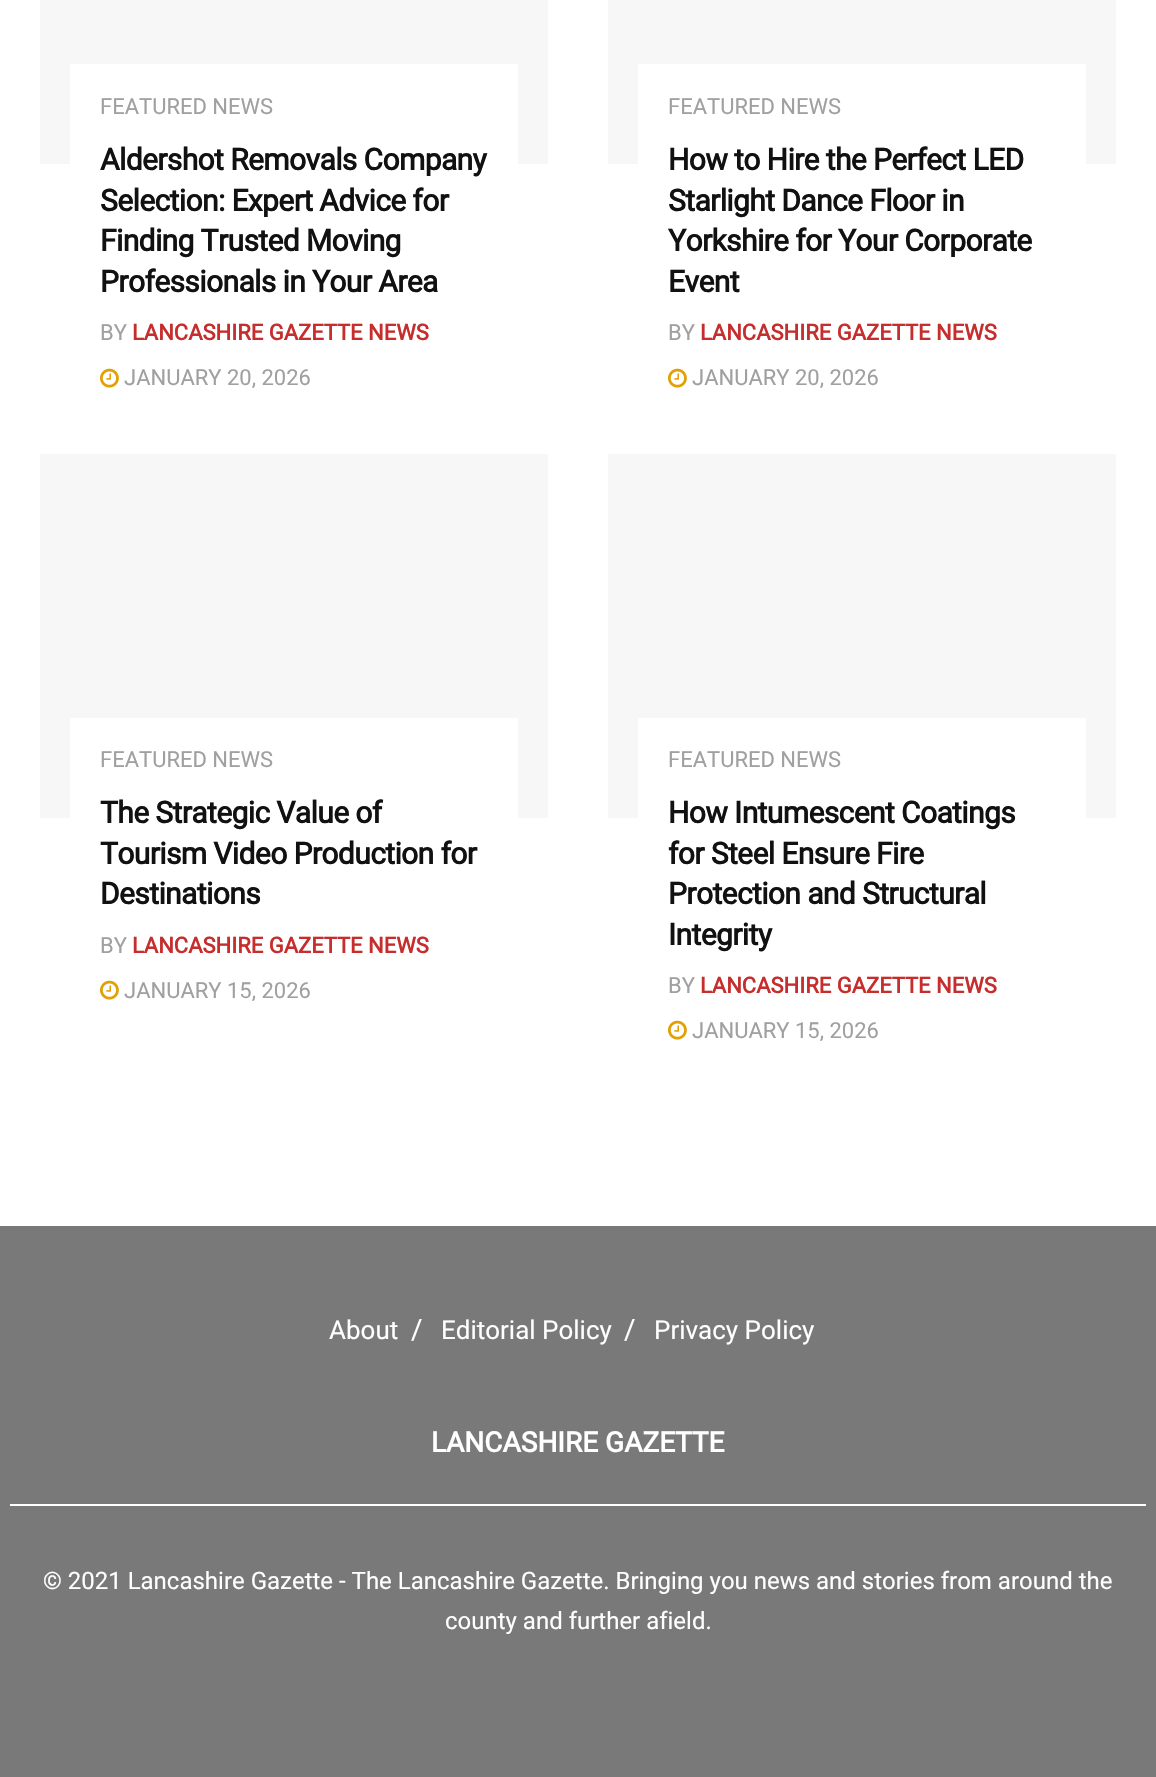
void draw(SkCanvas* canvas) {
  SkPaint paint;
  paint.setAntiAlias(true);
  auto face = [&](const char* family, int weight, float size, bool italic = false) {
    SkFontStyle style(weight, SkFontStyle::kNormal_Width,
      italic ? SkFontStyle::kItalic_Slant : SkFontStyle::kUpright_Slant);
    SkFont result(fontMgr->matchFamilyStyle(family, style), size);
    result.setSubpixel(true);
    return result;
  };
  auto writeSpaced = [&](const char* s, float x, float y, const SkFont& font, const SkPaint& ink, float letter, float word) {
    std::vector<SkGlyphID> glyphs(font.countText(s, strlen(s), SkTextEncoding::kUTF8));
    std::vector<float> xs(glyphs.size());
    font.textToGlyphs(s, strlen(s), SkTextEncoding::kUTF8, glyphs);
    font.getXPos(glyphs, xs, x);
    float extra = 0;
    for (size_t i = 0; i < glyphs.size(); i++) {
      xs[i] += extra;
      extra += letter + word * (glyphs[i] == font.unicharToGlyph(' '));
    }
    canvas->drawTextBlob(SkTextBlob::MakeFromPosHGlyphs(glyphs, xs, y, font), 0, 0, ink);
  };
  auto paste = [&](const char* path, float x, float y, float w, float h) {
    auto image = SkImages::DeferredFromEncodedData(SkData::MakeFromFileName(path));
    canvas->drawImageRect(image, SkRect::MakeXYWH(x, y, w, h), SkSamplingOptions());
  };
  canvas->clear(0xffffffff);
  paint.setColor(0xfff7f7f7);
  canvas->drawRect(SkRect::MakeXYWH(40, 0, 508, 164), paint);
  paint.setColor(0xffffffff);
  canvas->drawRect(SkRect::MakeXYWH(70, 64, 448, 100), paint);
  paste("img/1.png", 100, 368, 19, 20);
  paint.setColor(0xfff7f7f7);
  canvas->drawRect(SkRect::MakeXYWH(608, 0, 508, 164), paint);
  paint.setColor(0xffffffff);
  canvas->drawRect(SkRect::MakeXYWH(638, 64, 448, 100), paint);
  paste("img/1.png", 668, 368, 19, 20);
  paint.setColor(0xfff7f7f7);
  canvas->drawRect(SkRect::MakeXYWH(40, 454, 508, 364), paint);
  paint.setColor(0xffffffff);
  canvas->drawRect(SkRect::MakeXYWH(70, 718, 448, 100), paint);
  paste("img/1.png", 100, 980, 19, 20);
  paint.setColor(0xfff7f7f7);
  canvas->drawRect(SkRect::MakeXYWH(608, 454, 508, 364), paint);
  paint.setColor(0xffffffff);
  canvas->drawRect(SkRect::MakeXYWH(638, 718, 448, 100), paint);
  paste("img/1.png", 668, 1020, 19, 20);
  paint.setColor(0xff797979);
  canvas->drawRect(SkRect::MakeXYWH(0, 1226, 1156, 551), paint);
  paint.setColor(0xffffffff);
  canvas->drawRect(SkRect::MakeXYWH(10, 1504, 1136, 2), paint);
  auto f0 = face("Roboto", 400, 22);
  paint.setColor(0xffa0a0a0);
  canvas->drawString("FEATURED NEWS", 100, 114, f0, paint);
  auto f1 = face("Roboto", 700, 30);
  paint.setColor(0xff111111);
  {
    const struct { const char* s; float x, y; } items[] = {
      {"Aldershot Removals Company", 100, 170},
      {"Selection: Expert Advice for", 100, 211},
      {"Finding Trusted Moving", 100, 251},
      {"Professionals in Your Area", 100, 292},
    };
    for (auto [s, x, y] : items) {
      writeSpaced(s, x, y, f1, paint, -0.6f, 0);
    }
  }
  paint.setColor(0xffa0a0a0);
  canvas->drawString("BY", 100, 340, f0, paint);
  auto f2 = face("Roboto", 700, 22);
  paint.setColor(0xffc62d2d);
  canvas->drawString("LANCASHIRE GAZETTE NEWS", 132, 340, f2, paint);
  paint.setColor(0xffa0a0a0);
  canvas->drawString("JANUARY 20, 2026", 124, 385, f0, paint);
  canvas->drawString("FEATURED NEWS", 668, 114, f0, paint);
  paint.setColor(0xff111111);
  {
    const struct { const char* s; float x, y; } items[] = {
      {"How to Hire the Perfect LED", 668, 170},
      {"Starlight Dance Floor in", 668, 211},
      {"Yorkshire for Your Corporate", 668, 251},
      {"Event", 668, 292},
    };
    for (auto [s, x, y] : items) {
      writeSpaced(s, x, y, f1, paint, -0.6f, 0);
    }
  }
  paint.setColor(0xffa0a0a0);
  canvas->drawString("BY", 668, 340, f0, paint);
  paint.setColor(0xffc62d2d);
  canvas->drawString("LANCASHIRE GAZETTE NEWS", 700, 340, f2, paint);
  paint.setColor(0xffa0a0a0);
  canvas->drawString("JANUARY 20, 2026", 692, 385, f0, paint);
  canvas->drawString("FEATURED NEWS", 100, 767, f0, paint);
  paint.setColor(0xff111111);
  {
    const struct { const char* s; float x, y; } items[] = {
      {"The Strategic Value of", 100, 823},
      {"Tourism Video Production for", 100, 864},
      {"Destinations", 100, 904},
    };
    for (auto [s, x, y] : items) {
      writeSpaced(s, x, y, f1, paint, -0.6f, 0);
    }
  }
  paint.setColor(0xffa0a0a0);
  canvas->drawString("BY", 100, 953, f0, paint);
  paint.setColor(0xffc62d2d);
  canvas->drawString("LANCASHIRE GAZETTE NEWS", 132, 953, f2, paint);
  paint.setColor(0xffa0a0a0);
  canvas->drawString("JANUARY 15, 2026", 124, 998, f0, paint);
  canvas->drawString("FEATURED NEWS", 668, 767, f0, paint);
  paint.setColor(0xff111111);
  {
    const struct { const char* s; float x, y; } items[] = {
      {"How Intumescent Coatings", 668, 823},
      {"for Steel Ensure Fire", 668, 864},
      {"Protection and Structural", 668, 904},
      {"Integrity", 668, 945},
    };
    for (auto [s, x, y] : items) {
      writeSpaced(s, x, y, f1, paint, -0.6f, 0);
    }
  }
  paint.setColor(0xffa0a0a0);
  canvas->drawString("BY", 668, 993, f0, paint);
  paint.setColor(0xffc62d2d);
  canvas->drawString("LANCASHIRE GAZETTE NEWS", 700, 993, f2, paint);
  paint.setColor(0xffa0a0a0);
  canvas->drawString("JANUARY 15, 2026", 692, 1038, f0, paint);
  auto f3 = face("Roboto", 400, 26);
  paint.setColor(0xffffffff);
  canvas->drawString("About", 329, 1339, f3, paint);
  auto f4 = face("Roboto", 400, 28);
  canvas->drawString("/", 411, 1339, f4, paint);
  canvas->drawString("Editorial Policy", 441, 1339, f3, paint);
  canvas->drawString("/", 624, 1339, f4, paint);
  canvas->drawString("Privacy Policy", 654, 1339, f3, paint);
  auto f5 = face("Roboto", 700, 28);
  canvas->drawString("LANCASHIRE GAZETTE", 431, 1452, f5, paint);
  auto f6 = face("Roboto", 400, 24);
  canvas->drawString("© 2021 Lancashire Gazette - The Lancashire Gazette. Bringing you news and stories from around the", 43, 1589, f6, paint);
  canvas->drawString("county and further afield.", 445, 1629, f6, paint);
}
